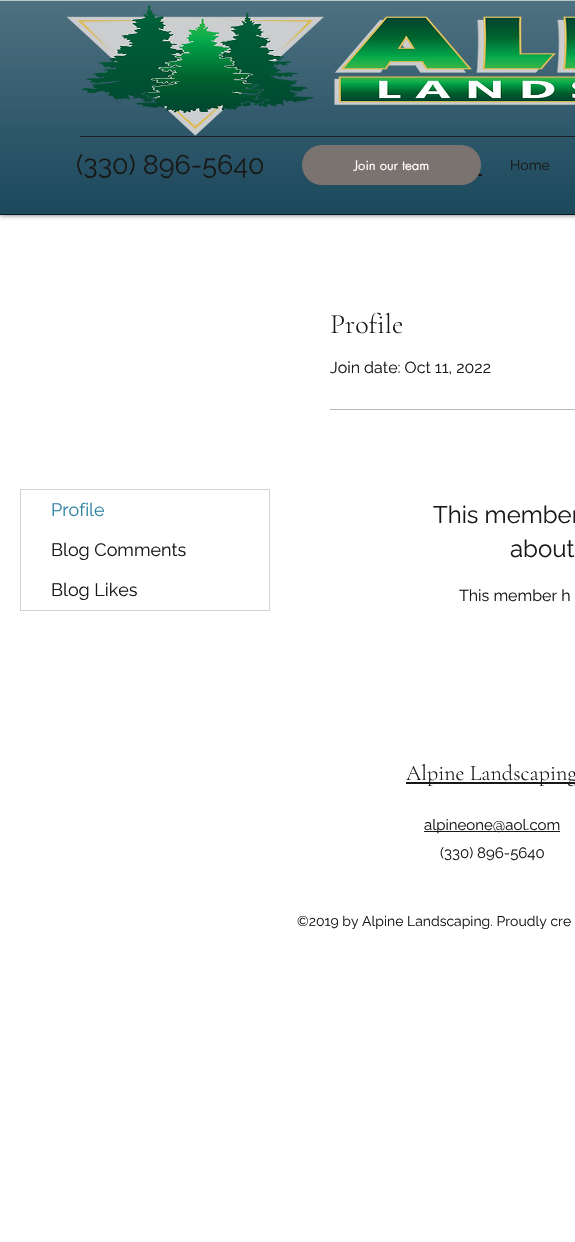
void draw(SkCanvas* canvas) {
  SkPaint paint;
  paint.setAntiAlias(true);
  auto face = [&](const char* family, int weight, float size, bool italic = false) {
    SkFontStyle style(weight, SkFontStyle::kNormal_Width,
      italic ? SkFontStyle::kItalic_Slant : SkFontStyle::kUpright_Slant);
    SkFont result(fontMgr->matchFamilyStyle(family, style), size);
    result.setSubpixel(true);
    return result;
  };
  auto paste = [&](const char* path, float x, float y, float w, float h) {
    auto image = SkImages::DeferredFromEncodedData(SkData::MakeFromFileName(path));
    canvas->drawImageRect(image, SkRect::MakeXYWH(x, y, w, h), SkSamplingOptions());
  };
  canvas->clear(0xffffffff);
  paint.setColor(0x99000000);
  paint.setMaskFilter(SkMaskFilter::MakeBlur(kNormal_SkBlurStyle, 2.5f));
  canvas->drawRect(SkRect::MakeXYWH(0, 0, 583, 215), paint);
  paint.setMaskFilter(nullptr);
  paint.setColor(0xff103f54);
  canvas->drawRect(SkRect::MakeXYWH(0, 1, 575, 213), paint);
  paste("img/1.png", 0, 1, 575, 213);
  paint.setColor(0xff0b1d25);
  canvas->drawRect(SkRect::MakeXYWH(0, 214, 575, 1), paint);
  paint.setColor(0xffb8c6cc);
  canvas->drawRect(SkRect::MakeXYWH(0, 0, 575, 1), paint);
  paste("img/2.png", 66, 5, 509, 131);
  paint.setColor(0xff1b2124);
  canvas->drawRect(SkRect::MakeXYWH(80, 136, 495, 1), paint);
  paint.setColor(0xff181818);
  canvas->drawRect(SkRect::MakeXYWH(477, 174, 5, 2), paint);
  paint.setColor(0xff7b736f);
  canvas->drawRoundRect(SkRect::MakeXYWH(302, 145, 179, 40), 20, 20, paint);
  paint.setStroke(true);
  paint.setStrokeWidth(1);
  paint.setColor(0xffd1d1d1);
  canvas->drawRect(SkRect::MakeXYWH(20.5f, 489.5f, 249, 121), paint);
  paint.setStroke(false);
  {
    const struct { float x, y, w, h; SkColor color; } items[] = {
      {330, 409, 245, 1, 0xffbababa},
      {406, 782, 169, 2, 0xff181818},
      {424, 831, 136, 1, 0xff181818},
    };
    for (auto [x, y, w, h, color] : items) {
      paint.setColor(color);
      canvas->drawRect(SkRect::MakeXYWH(x, y, w, h), paint);
    }
  }
  auto f0 = face("Raleway", 400, 27);
  canvas->drawString("(330) 896-5640", 76, 174, f0, paint);
  auto f1 = face("futura", 400, 13);
  paint.setColor(0xffffffff);
  canvas->drawString("Join our team", 354, 170, f1, paint);
  auto f2 = face("Raleway", 400, 14);
  paint.setColor(0xff181818);
  canvas->drawString("Home", 510, 170, f2, paint);
  auto f3 = face("Raleway", 400, 18);
  paint.setColor(0xff3082a4);
  canvas->drawString("Profile", 51, 516, f3, paint);
  paint.setColor(0xff181818);
  canvas->drawString("Blog Comments", 51, 556, f3, paint);
  canvas->drawString("Blog Likes", 51, 596, f3, paint);
  auto f4 = face("Cormorant Garamond", 300, 28);
  canvas->drawString("Profile", 330, 333, f4, paint);
  auto f5 = face("Raleway", 400, 16);
  canvas->drawString("Join date: Oct 11, 2022", 330, 373, f5, paint);
  auto f6 = face("Raleway", 400, 24);
  canvas->drawString("This member", 433, 523, f6, paint);
  canvas->drawString("about", 510, 557, f6, paint);
  canvas->drawString("This member h", 459, 601, f5, paint);
  auto f7 = face("Cormorant Garamond", 300, 22);
  canvas->drawString("Alpine Landscaping", 406, 780, f7, paint);
  auto f8 = face("Raleway", 400, 15);
  canvas->drawString("alpineone@aol.com", 424, 830, f8, paint);
  canvas->drawString("(330) 896-5640", 440, 858, f8, paint);
  canvas->drawString("©2019 by Alpine Landscaping. Proudly cre", 297, 926, f2, paint);
}
